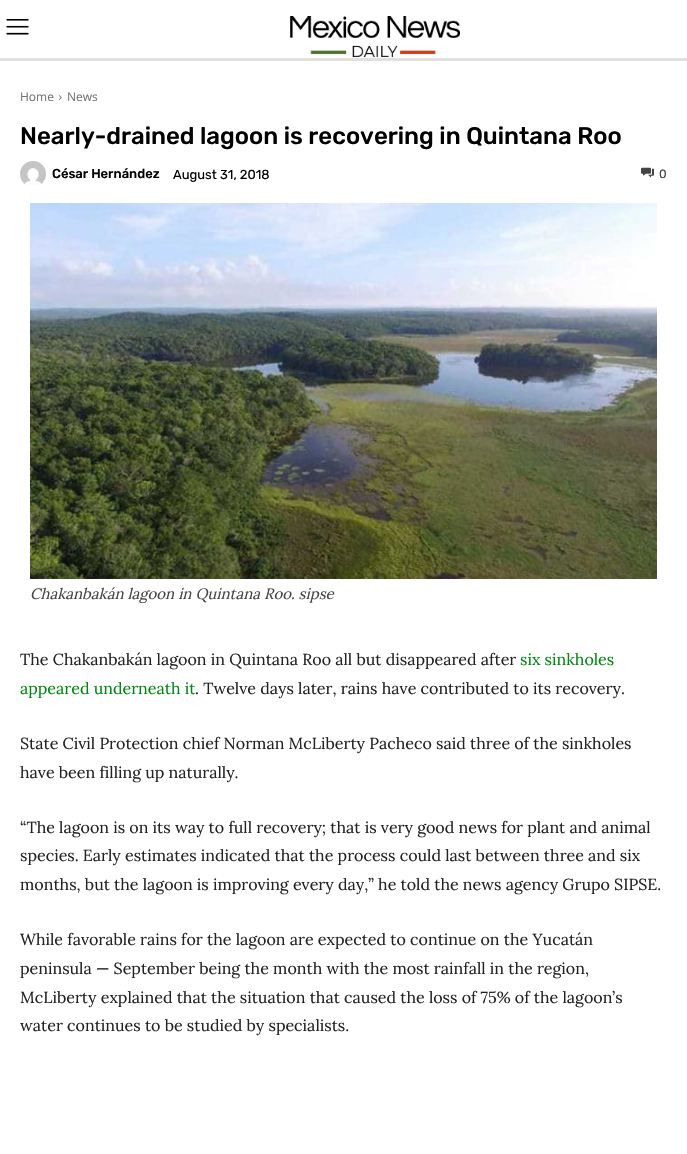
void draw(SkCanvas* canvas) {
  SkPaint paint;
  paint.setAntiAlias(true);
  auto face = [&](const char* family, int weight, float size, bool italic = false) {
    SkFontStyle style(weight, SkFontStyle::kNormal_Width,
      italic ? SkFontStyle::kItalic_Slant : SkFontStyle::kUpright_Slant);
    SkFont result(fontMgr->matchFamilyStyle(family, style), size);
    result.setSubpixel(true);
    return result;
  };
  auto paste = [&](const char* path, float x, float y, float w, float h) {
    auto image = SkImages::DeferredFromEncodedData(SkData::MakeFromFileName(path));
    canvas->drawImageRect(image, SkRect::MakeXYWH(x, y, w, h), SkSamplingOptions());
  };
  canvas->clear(0xffffffff);
  paste("img/1.png", 6, 19, 23, 16);
  paste("img/2.png", 290, 16, 170, 41);
  paint.setColor(0xffe0e0e0);
  canvas->drawRect(SkRect::MakeXYWH(0, 58, 687, 3), paint);
  paste("img/3.png", 59, 95, 3, 5);
  paste("img/4.png", 20, 161, 26, 24);
  paste("img/5.png", 641, 167, 13, 11);
  paste("img/6.png", 30, 203, 627, 376);
  auto f0 = face("Open Sans", 400, 12);
  paint.setColor(0xff747474);
  canvas->drawString("Home", 20, 101, f0, paint);
  canvas->drawString("News", 67, 101, f0, paint);
  auto f1 = face("Rubik", 500, 24);
  paint.setColor(0xff000000);
  canvas->drawString("Nearly-drained lagoon is recovering in Quintana Roo", 20, 144, f1, paint);
  auto f2 = face("Rubik", 500, 13);
  canvas->drawString("César Hernández", 52, 178, f2, paint);
  auto f3 = face("Rubik", 400, 13);
  canvas->drawString("August 31, 2018", 173, 179, f3, paint);
  auto f4 = face("Rubik", 400, 12);
  paint.setColor(0xff444444);
  canvas->drawString("0", 659, 178, f4, paint);
  auto f5 = face("Lora", 400, 15, true);
  canvas->drawString("Chakanbakán lagoon in Quintana Roo. sipse", 30, 599, f5, paint);
  auto f6 = face("Lora", 400, 16);
  paint.setColor(0xff222222);
  canvas->drawString("The Chakanbakán lagoon in Quintana Roo all but disappeared after", 20, 665, f6, paint);
  paint.setColor(0xff00870f);
  canvas->drawString("six sinkholes", 520, 665, f6, paint);
  canvas->drawString("appeared underneath it", 20, 694, f6, paint);
  paint.setColor(0xff222222);
  {
    const struct { const char* s; float x, y; } items[] = {
      {". Twelve days later, rains have contributed to its recovery.", 195, 694},
      {"State Civil Protection chief Norman McLiberty Pacheco said three of the sinkholes", 20, 749},
      {"have been filling up naturally.", 20, 778},
      {"“The lagoon is on its way to full recovery; that is very good news for plant and animal", 20, 833},
      {"species. Early estimates indicated that the process could last between three and six", 20, 861},
      {"months, but the lagoon is improving every day,” he told the news agency Grupo SIPSE.", 20, 890},
      {"While favorable rains for the lagoon are expected to continue on the Yucatán", 20, 945},
      {"peninsula — September being the month with the most rainfall in the region,", 20, 974},
      {"McLiberty explained that the situation that caused the loss of 75% of the lagoon’s", 20, 1003},
      {"water continues to be studied by specialists.", 20, 1031},
    };
    for (auto [s, x, y] : items) {
      canvas->drawString(s, x, y, f6, paint);
    }
  }
}
